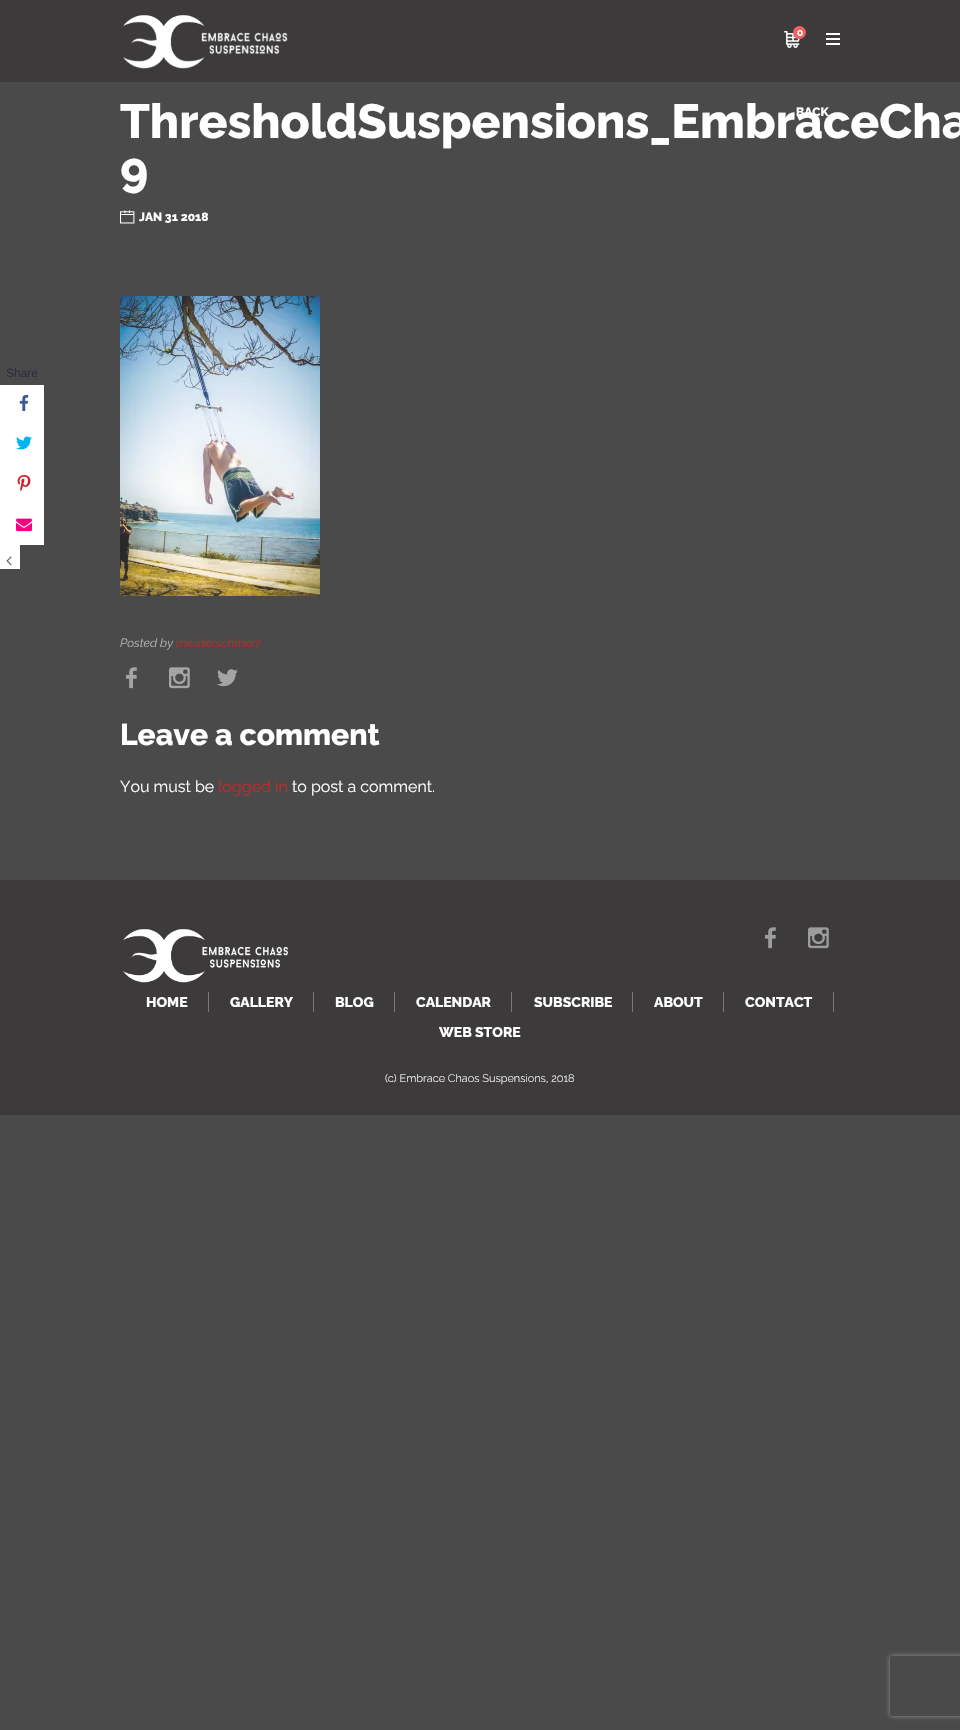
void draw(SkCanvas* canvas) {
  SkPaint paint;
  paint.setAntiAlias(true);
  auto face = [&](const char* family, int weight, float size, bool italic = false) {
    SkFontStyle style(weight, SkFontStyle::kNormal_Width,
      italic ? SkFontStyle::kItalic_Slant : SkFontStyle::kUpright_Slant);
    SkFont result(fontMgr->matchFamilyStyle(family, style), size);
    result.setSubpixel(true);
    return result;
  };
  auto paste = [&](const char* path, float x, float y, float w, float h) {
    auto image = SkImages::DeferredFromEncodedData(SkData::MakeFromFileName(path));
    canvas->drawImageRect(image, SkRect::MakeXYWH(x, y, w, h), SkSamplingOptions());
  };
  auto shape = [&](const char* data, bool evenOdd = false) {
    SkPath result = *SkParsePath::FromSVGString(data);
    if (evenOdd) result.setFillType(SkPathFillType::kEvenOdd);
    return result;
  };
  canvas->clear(0xff4a4a4a);
  paint.setColor(0xffffffff);
  canvas->drawRect(SkRect::MakeXYWH(0, 385, 44, 160), paint);
  paste("img/1.png", 19, 395, 10, 16);
  paste("img/2.png", 16, 436, 16, 14);
  paste("img/3.png", 17, 475, 14, 16);
  paste("img/4.png", 16, 518, 16, 14);
  canvas->drawRect(SkRect::MakeXYWH(0, 545, 20, 24), paint);
  paste("img/5.png", 6, 556, 6, 10);
  paint.setColor(0xff3c3a3a);
  canvas->drawRect(SkRect::MakeXYWH(0, 0, 960, 82), paint);
  paste("img/6.png", 123, 15, 165, 54);
  paste("img/7.png", 784, 31, 16, 17);
  paint.setColor(0xffed6363);
  canvas->drawCircle(799.5f, 32.5f, 6.5f, paint);
  {
    const struct { float x, y, w, h; SkColor color; } items[] = {
      {826, 33, 14, 2, 0xffffffff},
      {826, 38, 14, 2, 0xffffffff},
      {826, 43, 14, 2, 0xffffffff},
    };
    for (auto [x, y, w, h, color] : items) {
      paint.setColor(color);
      canvas->drawRect(SkRect::MakeXYWH(x, y, w, h), paint);
    }
  }
  paste("img/8.png", 120, 210, 15, 14);
  paste("img/9.png", 120, 296, 200, 300);
  paste("img/10.png", 126, 667, 11, 22);
  paste("img/11.png", 169, 667, 21, 22);
  paste("img/12.png", 217, 669, 21, 18);
  paint.setColor(0xff3c3a3a);
  canvas->drawRect(SkRect::MakeXYWH(0, 880, 960, 235), paint);
  paste("img/13.png", 123, 929, 165, 54);
  paste("img/14.png", 765, 927, 11, 22);
  paste("img/15.png", 808, 927, 21, 22);
  {
    const struct { float x, y, w, h; SkColor color; } items[] = {
      {208, 992, 1, 20, 0xff787878},
      {313, 992, 1, 20, 0xff787878},
      {394, 992, 1, 20, 0xff787878},
      {511, 992, 1, 20, 0xff787878},
      {632, 992, 1, 20, 0xff787878},
      {723, 992, 1, 20, 0xff787878},
      {833, 992, 1, 20, 0xff787878},
    };
    for (auto [x, y, w, h, color] : items) {
      paint.setColor(color);
      canvas->drawRect(SkRect::MakeXYWH(x, y, w, h), paint);
    }
  }
  canvas->save();
  canvas->clipPath(shape("M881 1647H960V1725H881ZM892 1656H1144C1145 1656 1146 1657 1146 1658V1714C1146 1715 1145 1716 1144 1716H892C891 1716 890 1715 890 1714V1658C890 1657 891 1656 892 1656Z", true), true);
  paint.setColor(0xff949494);
  paint.setMaskFilter(SkMaskFilter::MakeBlur(kNormal_SkBlurStyle, 2.5f));
  canvas->drawRoundRect(SkRect::MakeXYWH(890, 1656, 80, 60), 2, 2, paint);
  paint.setMaskFilter(nullptr);
  canvas->restore();
  auto f0 = face("Liberation Sans", 400, 12);
  paint.setColor(0xff2b2d40);
  canvas->drawString("Share", 6, 377, f0, paint);
  auto f1 = face("Raleway", 700, 10);
  paint.setColor(0xffffffff);
  canvas->drawString("0", 797, 36, f1, paint);
  auto f2 = face("Raleway", 800, 48);
  canvas->drawString("ThresholdSuspensions_EmbraceCha", 120, 138, f2, paint);
  canvas->drawString("9", 120, 186, f2, paint);
  auto f3 = face("Raleway", 800, 12);
  canvas->drawString("JAN 31 2018", 139, 221, f3, paint);
  canvas->drawString("BACK", 796, 116, f3, paint);
  auto f4 = face("Raleway", 400, 12, true);
  paint.setColor(0xffb4b4b4);
  canvas->drawString("Posted by", 120, 647, f4, paint);
  paint.setColor(0xffc32929);
  canvas->drawString("meisterschmerz", 176, 647, f4, paint);
  auto f5 = face("Raleway", 800, 30);
  paint.setColor(0xffffffff);
  canvas->drawString("Leave a comment", 120, 745, f5, paint);
  auto f6 = face("Raleway", 400, 16);
  canvas->drawString("You must be", 120, 792, f6, paint);
  paint.setColor(0xffc32929);
  canvas->drawString("logged in", 218, 792, f6, paint);
  paint.setColor(0xffffffff);
  canvas->drawString("to post a comment.", 292, 792, f6, paint);
  auto f7 = face("Raleway", 800, 14);
  {
    const struct { const char* s; float x, y; } items[] = {
      {"HOME", 146, 1007},
      {"GALLERY", 230, 1007},
      {"BLOG", 335, 1007},
      {"CALENDAR", 416, 1007},
      {"SUBSCRIBE", 534, 1007},
      {"ABOUT", 654, 1007},
      {"CONTACT", 745, 1007},
      {"WEB STORE", 439, 1037},
    };
    for (auto [s, x, y] : items) {
      canvas->drawString(s, x, y, f7, paint);
    }
  }
  auto f8 = face("Raleway", 300, 11);
  canvas->drawString("(c) Embrace Chaos Suspensions, 2018", 385, 1082, f8, paint);
}
